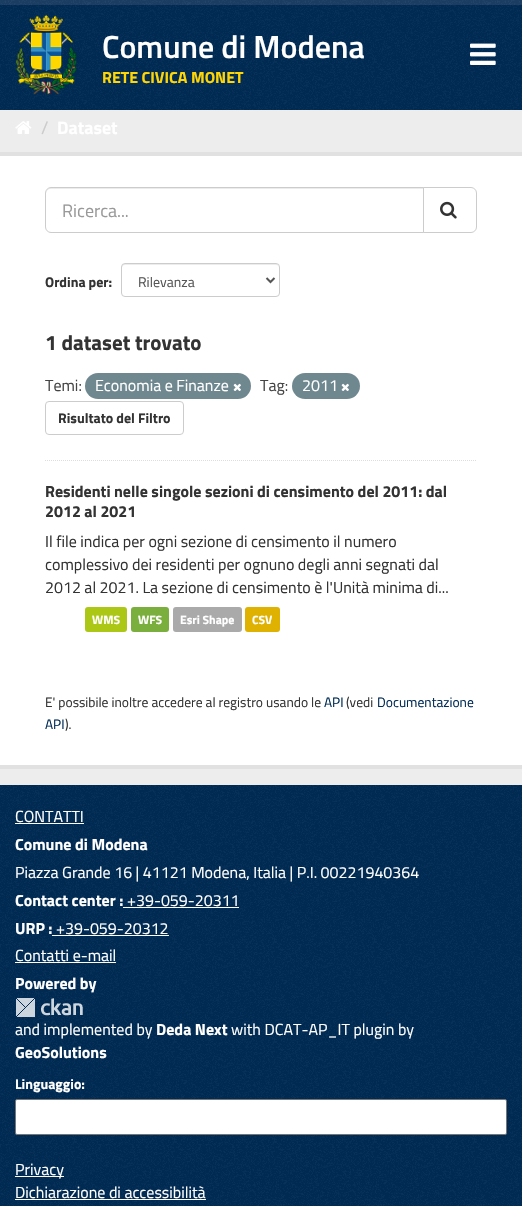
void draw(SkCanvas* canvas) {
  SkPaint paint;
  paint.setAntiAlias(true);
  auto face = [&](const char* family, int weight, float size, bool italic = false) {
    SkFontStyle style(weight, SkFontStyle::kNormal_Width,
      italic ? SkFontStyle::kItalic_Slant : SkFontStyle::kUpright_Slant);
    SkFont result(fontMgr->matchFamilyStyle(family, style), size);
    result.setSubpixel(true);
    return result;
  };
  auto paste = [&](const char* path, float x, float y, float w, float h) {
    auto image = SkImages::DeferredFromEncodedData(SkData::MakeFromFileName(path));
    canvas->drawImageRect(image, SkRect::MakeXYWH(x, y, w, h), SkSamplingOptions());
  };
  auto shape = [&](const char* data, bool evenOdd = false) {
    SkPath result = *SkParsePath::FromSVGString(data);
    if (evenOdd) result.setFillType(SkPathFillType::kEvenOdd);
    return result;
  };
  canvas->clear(0xff1a3f64);
  paste("img/1.png", 1, 0, 521, 5);
  paint.setColor(0xff002b54);
  canvas->drawRect(SkRect::MakeXYWH(0, 5, 522, 105), paint);
  paste("img/2.png", 0, 5, 522, 105);
  paste("img/3.png", 15, 15, 62, 80);
  paste("img/4.png", 470, 43, 26, 22);
  paint.setColor(0xffededed);
  canvas->drawRect(SkRect::MakeXYWH(0, 110, 522, 675), paint);
  paste("img/5.png", 15, 121, 17, 13);
  paint.setStroke(true);
  paint.setStrokeWidth(4);
  paint.setColor(0xffe1e1e1);
  canvas->drawRect(SkRect::MakeXYWH(-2, 154, 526, 613), paint);
  paint.setStroke(false);
  paint.setColor(0xffffffff);
  canvas->drawRect(SkRect::MakeXYWH(0, 156, 522, 609), paint);
  paint.setStroke(true);
  paint.setStrokeWidth(1);
  paint.setColor(0xffdddddd);
  paint.setPathEffect(SkDashPathEffect::Make({{1, 1}}, 0));
  canvas->drawPath(shape("M45 460.5H477"), paint);
  paint.setPathEffect(nullptr);
  paint.setStroke(false);
  paint.setColor(0xffececec);
  canvas->drawPath(shape("M51 189H423V188H51C48 188 46 190 46 193V194C46 191 48 189 51 189Z"), paint);
  paint.setStroke(true);
  paint.setColor(0xffcccccc);
  canvas->drawPath(shape("M51 187.5H423.5V232.5H51C48 232.5 45.5 230 45.5 227V193C45.5 190 48 187.5 51 187.5Z"), paint);
  paint.setStroke(false);
  paint.setColor(0xffffffff);
  canvas->drawPath(shape("M423.5 187.5H471C474 187.5 476.5 190 476.5 193V227C476.5 230 474 232.5 471 232.5H423.5Z"), paint);
  paint.setStroke(true);
  paint.setColor(0xffcccccc);
  canvas->drawPath(shape("M423.5 187.5H471C474 187.5 476.5 190 476.5 193V227C476.5 230 474 232.5 471 232.5H423.5Z"), paint);
  paste("img/6.png", 440, 201, 17, 18);
  paint.setStroke(false);
  paint.setColor(0xffececec);
  canvas->drawPath(shape("M125 265H276C278 265 279 266 279 268C279 266 278 264 276 264H124C122 264 122 266 122 268C122 266 123 265 125 265Z"), paint);
  paint.setStroke(true);
  paint.setColor(0xffcccccc);
  canvas->drawRoundRect(SkRect::MakeXYWH(121.5f, 263.5f, 158, 33), 3.5f, 3.5f, paint);
  paint.setStrokeWidth(2);
  paint.setColor(0xff555555);
  canvas->drawPath(shape("M266.5 278L270.5 282L274.5 278"), paint);
  paint.setStroke(false);
  paint.setColor(0xff6f8890);
  canvas->drawRoundRect(SkRect::MakeXYWH(85, 373, 166, 26), 13, 13, paint);
  paste("img/7.png", 233, 383, 8, 8);
  canvas->drawRoundRect(SkRect::MakeXYWH(292, 373, 68, 26), 13, 13, paint);
  paste("img/7.png", 341, 383, 8, 8);
  paint.setStroke(true);
  paint.setStrokeWidth(1);
  paint.setColor(0xffcccccc);
  canvas->drawRoundRect(SkRect::MakeXYWH(45.5f, 401.5f, 138, 33), 3.5f, 3.5f, paint);
  paint.setStroke(false);
  paint.setColor(0xffadc717);
  canvas->drawRoundRect(SkRect::MakeXYWH(85, 607, 42, 25), 3, 3, paint);
  paint.setColor(0xff7aae3d);
  canvas->drawRoundRect(SkRect::MakeXYWH(131, 607, 38, 25), 3, 3, paint);
  paint.setColor(0xffaaaaaa);
  canvas->drawRoundRect(SkRect::MakeXYWH(173, 607, 69, 25), 3, 3, paint);
  paint.setColor(0xffdfb100);
  canvas->drawRoundRect(SkRect::MakeXYWH(245, 607, 35, 25), 3, 3, paint);
  paint.setColor(0xff002b54);
  canvas->drawRect(SkRect::MakeXYWH(0, 785, 522, 421), paint);
  paste("img/8.png", 0, 785, 522, 421);
  {
    const struct { float x, y, w, h; SkColor color; } items[] = {
      {15, 823, 69, 1, 0xffffffff},
      {123, 907, 116, 1, 0xffffffff},
      {52, 935, 117, 1, 0xffffffff},
      {15, 962, 101, 1, 0xffffffff},
    };
    for (auto [x, y, w, h, color] : items) {
      paint.setColor(color);
      canvas->drawRect(SkRect::MakeXYWH(x, y, w, h), paint);
    }
  }
  paste("img/9.png", 16, 998, 67, 19);
  canvas->drawRoundRect(SkRect::MakeXYWH(15.5f, 1099.5f, 491, 35), 1.5f, 1.5f, paint);
  paint.setStroke(true);
  paint.setColor(0xff767676);
  canvas->drawRoundRect(SkRect::MakeXYWH(15.5f, 1099.5f, 491, 35), 1.5f, 1.5f, paint);
  paint.setStroke(false);
  paint.setColor(0xffffffff);
  canvas->drawRect(SkRect::MakeXYWH(15, 1176, 49, 1), paint);
  canvas->drawRect(SkRect::MakeXYWH(15, 1199, 191, 1), paint);
  auto f0 = face("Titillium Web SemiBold", 600, 32);
  canvas->drawString("Comune di Modena", 102, 58, f0, paint);
  auto f1 = face("Titillium Web", 700, 16);
  paint.setColor(0xfffed505);
  canvas->drawString("RETE CIVICA MONET", 102, 83, f1, paint);
  auto f2 = face("Titillium Web", 400, 18);
  paint.setColor(0xffcccccc);
  canvas->drawString("/", 41, 134, f2, paint);
  auto f3 = face("Titillium Web", 700, 18);
  paint.setColor(0xffffffff);
  canvas->drawString("Dataset", 57, 134, f3, paint);
  paint.setColor(0xff999999);
  canvas->drawString("Ricerca...", 62, 217, f2, paint);
  auto f4 = face("Titillium Web", 700, 14);
  paint.setColor(0xff333333);
  canvas->drawString("Ordina per:", 45, 287, f4, paint);
  auto f5 = face("Titillium Web", 400, 14);
  paint.setColor(0xff555555);
  canvas->drawString("Rilevanza", 138, 287, f5, paint);
  auto f6 = face("Titillium Web", 700, 21);
  paint.setColor(0xff333333);
  canvas->drawString("1 dataset trovato", 45, 350, f6, paint);
  auto f7 = face("Titillium Web", 400, 16);
  paint.setColor(0xff444444);
  canvas->drawString("Temi:", 45, 391, f7, paint);
  paint.setColor(0xffffffff);
  canvas->drawString("Economia e Finanze", 95, 391, f7, paint);
  paint.setColor(0xff444444);
  canvas->drawString("Tag:", 260, 391, f7, paint);
  paint.setColor(0xffffffff);
  canvas->drawString("2011", 302, 391, f7, paint);
  paint.setColor(0xff333333);
  canvas->drawString("Risultato del Filtro", 58, 423, f4, paint);
  canvas->drawString("Residenti nelle singole sezioni di censimento del 2011: dal", 45, 497, f1, paint);
  canvas->drawString("2012 al 2021", 45, 517, f1, paint);
  {
    const struct { const char* s; float x, y; } items[] = {
      {"Il file indica per ogni sezione di censimento il numero", 45, 547},
      {"complessivo dei residenti per ognuno degli anni segnati dal", 45, 570},
      {"2012 al 2021. La sezione di censimento è l'Unità minima di...", 45, 593},
    };
    for (auto [s, x, y] : items) {
      canvas->drawString(s, x, y, f7, paint);
    }
  }
  auto f8 = face("Titillium Web", 700, 12);
  paint.setColor(0xffffffff);
  {
    const struct { const char* s; float x, y; } items[] = {
      {"WMS", 92, 624},
      {"WFS", 138, 624},
      {"Esri Shape", 180, 624},
      {"CSV", 252, 624},
    };
    for (auto [s, x, y] : items) {
      canvas->drawString(s, x, y, f8, paint);
    }
  }
  auto f9 = face("Titillium Web", 400, 13.6f);
  paint.setColor(0xff333333);
  canvas->drawString("E' possibile inoltre accedere al registro usando le", 45, 707, f9, paint);
  paint.setColor(0xff002b54);
  canvas->drawString("API", 324, 707, f9, paint);
  paint.setColor(0xff333333);
  canvas->drawString("(vedi", 346, 707, f9, paint);
  paint.setColor(0xff002b54);
  canvas->drawString("Documentazione", 377, 707, f9, paint);
  canvas->drawString("API", 45, 729, f9, paint);
  paint.setColor(0xff333333);
  canvas->drawString(").", 65, 729, f9, paint);
  paint.setColor(0xffffffff);
  canvas->drawString("CONTATTI", 15, 822, f7, paint);
  canvas->drawString("Comune di Modena", 15, 850, f1, paint);
  canvas->drawString("Piazza Grande 16 | 41121 Modena, Italia | P.I. 00221940364", 15, 878, f7, paint);
  canvas->drawString("Contact center :", 15, 906, f1, paint);
  canvas->drawString("+39-059-20311", 127, 906, f7, paint);
  canvas->drawString("URP :", 15, 934, f1, paint);
  canvas->drawString("+39-059-20312", 56, 934, f7, paint);
  canvas->drawString("Contatti e-mail", 15, 961, f7, paint);
  canvas->drawString("Powered by", 15, 989, f1, paint);
  canvas->drawString("and implemented by", 15, 1035, f7, paint);
  canvas->drawString("Deda Next", 156, 1035, f1, paint);
  canvas->drawString("with DCAT-AP_IT plugin by", 231, 1035, f7, paint);
  canvas->drawString("GeoSolutions", 15, 1058, f1, paint);
  canvas->drawString("Linguaggio:", 15, 1089, f4, paint);
  canvas->drawString("Privacy", 15, 1175, f7, paint);
  canvas->drawString("Dichiarazione di accessibilità", 15, 1198, f7, paint);
}
